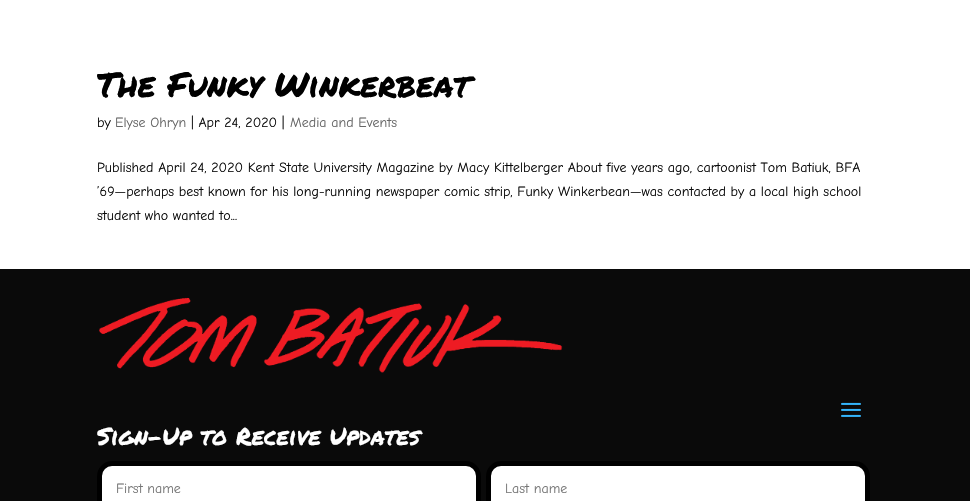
void draw(SkCanvas* canvas) {
  SkPaint paint;
  paint.setAntiAlias(true);
  auto face = [&](const char* family, int weight, float size, bool italic = false) {
    SkFontStyle style(weight, SkFontStyle::kNormal_Width,
      italic ? SkFontStyle::kItalic_Slant : SkFontStyle::kUpright_Slant);
    SkFont result(fontMgr->matchFamilyStyle(family, style), size);
    result.setSubpixel(true);
    return result;
  };
  auto paste = [&](const char* path, float x, float y, float w, float h) {
    auto image = SkImages::DeferredFromEncodedData(SkData::MakeFromFileName(path));
    canvas->drawImageRect(image, SkRect::MakeXYWH(x, y, w, h), SkSamplingOptions());
  };
  canvas->clear(0xffffffff);
  paint.setColor(0xff0a0a0a);
  canvas->drawRect(SkRect::MakeXYWH(0, 269, 970, 232), paint);
  paste("img/1.png", 99, 297, 464, 76);
  paste("img/2.png", 841, 402, 20, 15);
  paint.setColor(0xffffffff);
  canvas->drawRoundRect(SkRect::MakeXYWH(99.5f, 463.5f, 379, 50), 12.5f, 12.5f, paint);
  paint.setStroke(true);
  paint.setStrokeWidth(5);
  paint.setColor(0xff000000);
  canvas->drawRoundRect(SkRect::MakeXYWH(99.5f, 463.5f, 379, 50), 12.5f, 12.5f, paint);
  paint.setStroke(false);
  paint.setColor(0xffffffff);
  canvas->drawRoundRect(SkRect::MakeXYWH(488.5f, 463.5f, 379, 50), 12.5f, 12.5f, paint);
  paint.setStroke(true);
  paint.setColor(0xff000000);
  canvas->drawRoundRect(SkRect::MakeXYWH(488.5f, 463.5f, 379, 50), 12.5f, 12.5f, paint);
  auto f0 = face("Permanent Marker", 400, 34);
  paint.setStroke(false);
  canvas->drawString("The Funky Winkerbeat", 97, 97, f0, paint);
  auto f1 = face("Comic Neue", 400, 14);
  paint.setColor(0xff0a0a0a);
  canvas->drawString("by", 97, 127, f1, paint);
  paint.setColor(0xff666666);
  canvas->drawString("Elyse Ohryn", 115, 127, f1, paint);
  paint.setColor(0xff0a0a0a);
  canvas->drawString("| Apr 24, 2020 |", 191, 127, f1, paint);
  paint.setColor(0xff666666);
  canvas->drawString("Media and Events", 290, 127, f1, paint);
  paint.setColor(0xff0a0a0a);
  {
    const struct { const char* s; float x, y; } items[] = {
      {"Published April 24, 2020 Kent State University Magazine by Macy Kittelberger About five years ago, cartoonist Tom Batiuk, BFA", 97, 172},
      {"’69—perhaps best known for his long-running newspaper comic strip, Funky Winkerbean—was contacted by a local high school", 97, 196},
      {"student who wanted to...", 97, 220},
    };
    for (auto [s, x, y] : items) {
      canvas->drawString(s, x, y, f1, paint);
    }
  }
  auto f2 = face("Permanent Marker", 400, 24);
  paint.setColor(0xffffffff);
  canvas->drawString("Sign-Up to Receive Updates", 97, 445, f2, paint);
  paint.setColor(0xff757575);
  canvas->drawString("First name", 116, 493, f1, paint);
  canvas->drawString("Last name", 505, 493, f1, paint);
}
